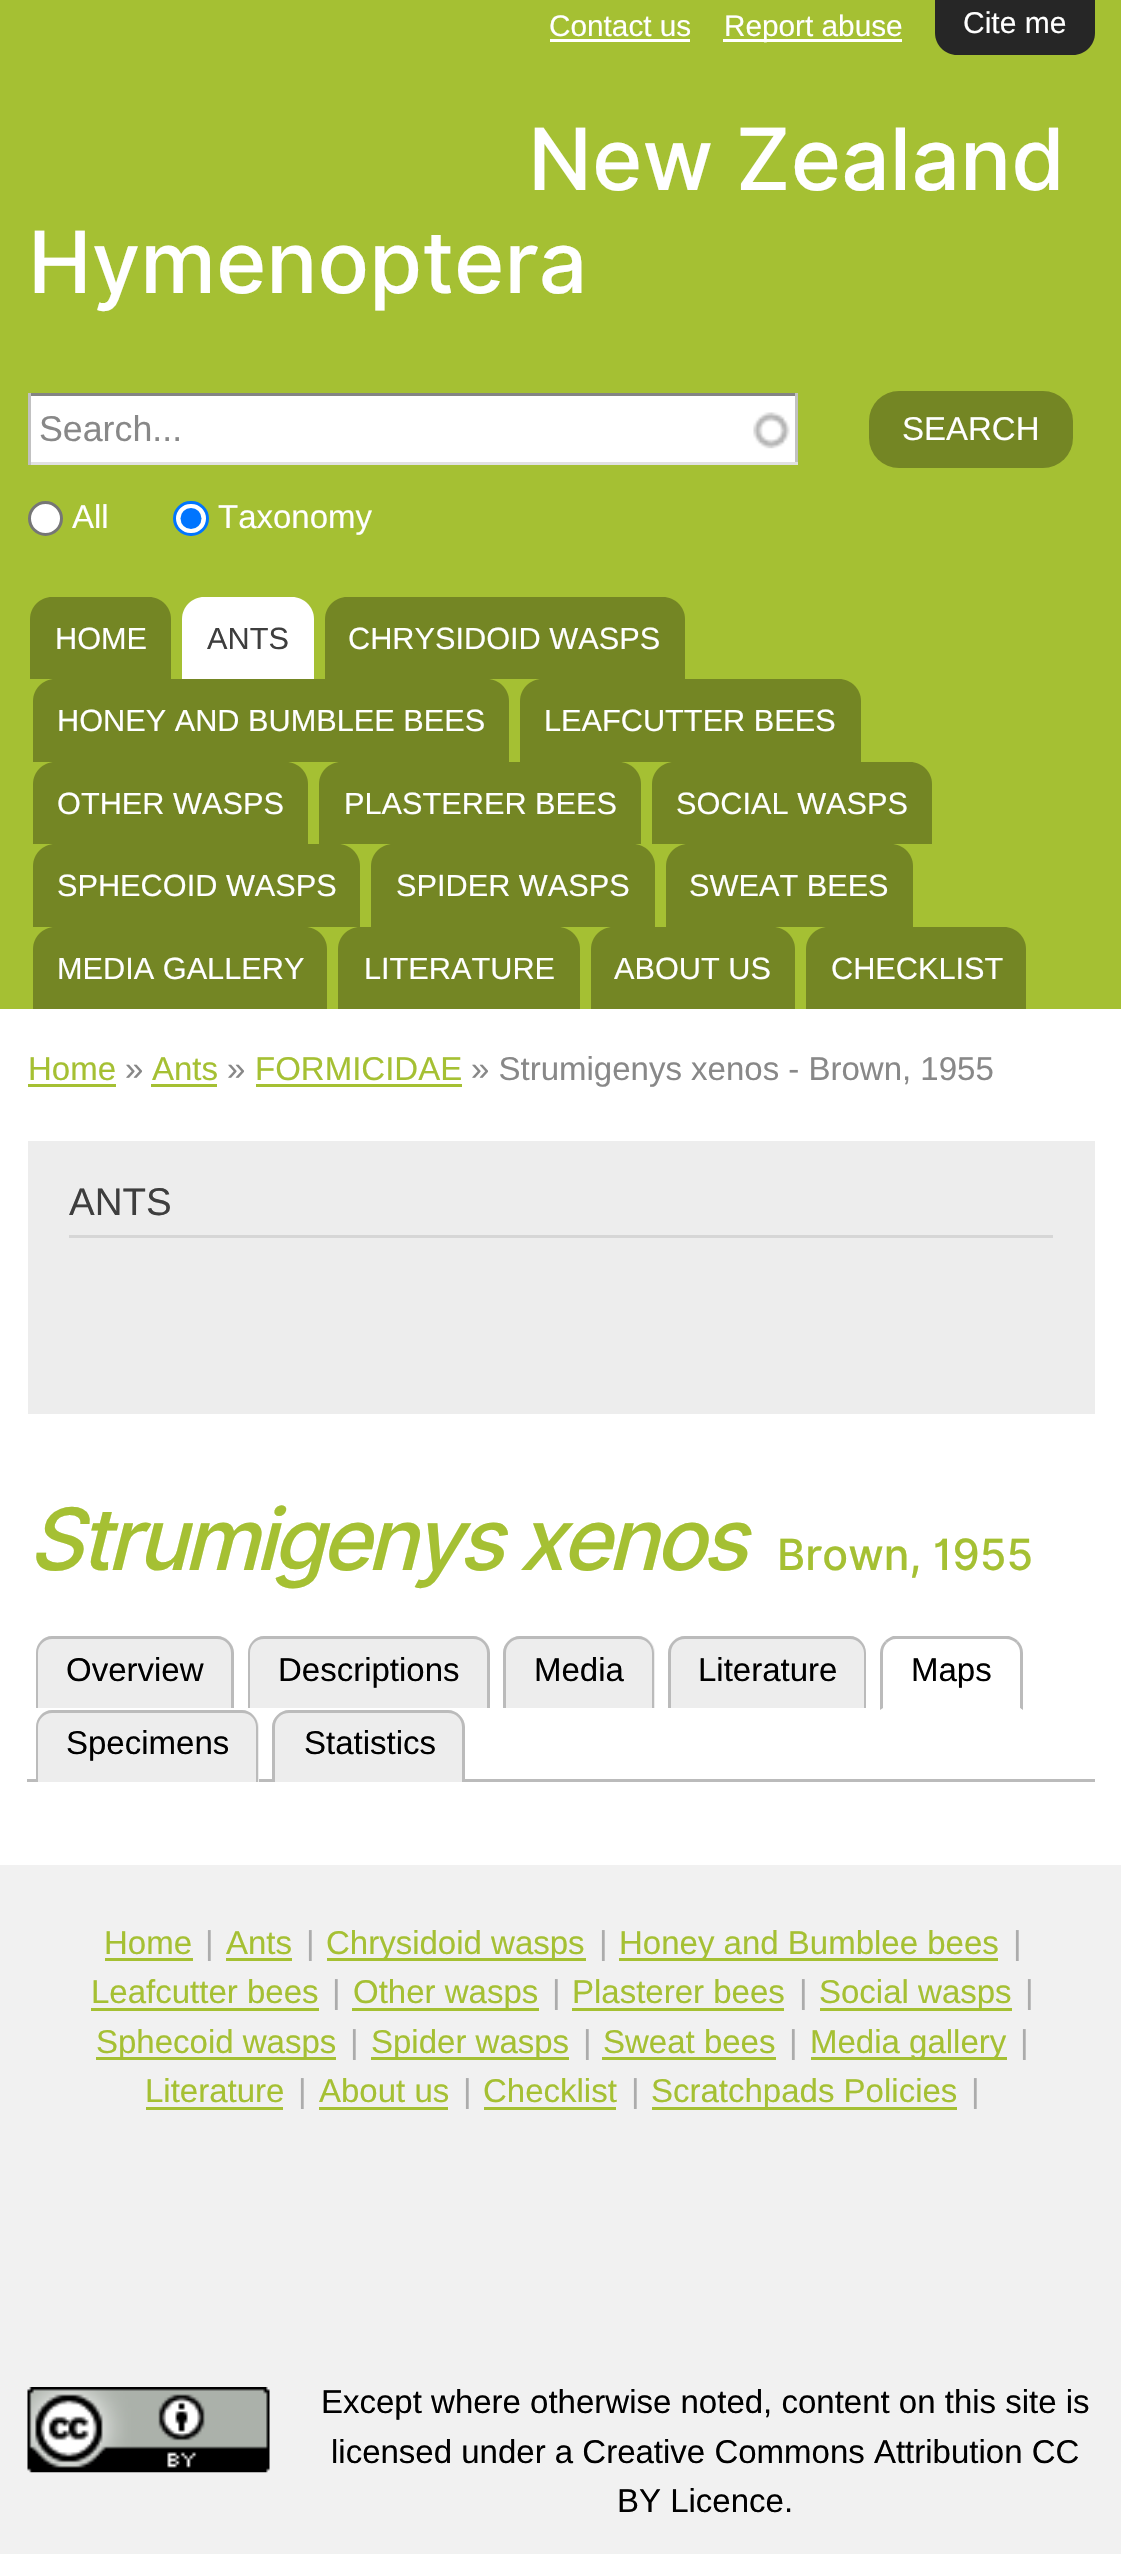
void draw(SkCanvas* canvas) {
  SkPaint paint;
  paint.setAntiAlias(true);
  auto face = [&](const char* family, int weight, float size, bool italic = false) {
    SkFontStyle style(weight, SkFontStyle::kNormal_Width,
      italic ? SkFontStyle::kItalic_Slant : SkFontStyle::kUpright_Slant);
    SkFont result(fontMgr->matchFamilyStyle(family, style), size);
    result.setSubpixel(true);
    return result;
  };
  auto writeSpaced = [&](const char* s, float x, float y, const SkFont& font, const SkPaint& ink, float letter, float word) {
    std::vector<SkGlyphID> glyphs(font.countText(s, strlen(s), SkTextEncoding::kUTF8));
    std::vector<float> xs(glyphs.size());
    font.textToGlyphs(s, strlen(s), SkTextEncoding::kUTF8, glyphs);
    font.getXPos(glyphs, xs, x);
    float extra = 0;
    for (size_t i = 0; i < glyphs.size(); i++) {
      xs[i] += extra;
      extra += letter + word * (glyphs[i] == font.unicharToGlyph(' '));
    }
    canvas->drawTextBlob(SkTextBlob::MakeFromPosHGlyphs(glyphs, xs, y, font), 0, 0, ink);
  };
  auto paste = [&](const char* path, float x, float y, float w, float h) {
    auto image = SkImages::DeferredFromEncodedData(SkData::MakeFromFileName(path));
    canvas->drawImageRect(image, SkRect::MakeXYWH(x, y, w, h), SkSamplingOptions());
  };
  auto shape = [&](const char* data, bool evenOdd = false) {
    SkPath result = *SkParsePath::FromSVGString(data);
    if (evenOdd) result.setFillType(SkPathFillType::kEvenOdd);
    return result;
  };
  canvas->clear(0xffffffff);
  paint.setColor(0xffa5c033);
  canvas->drawRect(SkRect::MakeXYWH(0, 0, 1121, 1009), paint);
  paint.setColor(0xff262626);
  canvas->drawPath(shape("M935 0H1095V33C1095 45 1085 55 1073 55H957C945 55 935 45 935 33Z"), paint);
  {
    const struct { float x, y, w, h; SkColor color; } items[] = {
      {550, 39, 140, 3, 0xffffffff},
      {723, 39, 179, 3, 0xffffffff},
      {31, 396, 764, 66, 0xffffffff},
    };
    for (auto [x, y, w, h, color] : items) {
      paint.setColor(color);
      canvas->drawRect(SkRect::MakeXYWH(x, y, w, h), paint);
    }
  }
  paste("img/1.png", 753, 412, 37, 37);
  {
    const struct { float x, y, w, h; SkColor color; } items[] = {
      {28, 393, 770, 3, 0xff848484},
      {795, 393, 3, 72, 0xffc1c1c1},
      {28, 462, 770, 3, 0xffe1e1e1},
      {28, 393, 3, 72, 0xffc1c1c1},
    };
    for (auto [x, y, w, h, color] : items) {
      paint.setColor(color);
      canvas->drawRect(SkRect::MakeXYWH(x, y, w, h), paint);
    }
  }
  paint.setColor(0xff748624);
  canvas->drawRoundRect(SkRect::MakeXYWH(869, 391, 204, 77), 30, 30, paint);
  paint.setColor(0xffffffff);
  canvas->drawCircle(45.5f, 518.5f, 16, paint);
  paint.setStroke(true);
  paint.setStrokeWidth(3);
  paint.setColor(0xff767676);
  canvas->drawCircle(45.5f, 518.5f, 16, paint);
  paint.setStroke(false);
  paint.setColor(0xffffffff);
  canvas->drawRoundRect(SkRect::MakeXYWH(174.5f, 502.5f, 33, 32), 16, 16, paint);
  paint.setStroke(true);
  paint.setColor(0xff0075ff);
  canvas->drawRoundRect(SkRect::MakeXYWH(174.5f, 502.5f, 33, 32), 16, 16, paint);
  paint.setStroke(false);
  canvas->drawCircle(191, 518.5f, 10.5f, paint);
  paint.setColor(0xff748624);
  canvas->drawPath(shape("M52 597H149C161 597 171 607 171 619V679H30V619C30 607 40 597 52 597Z"), paint);
  paint.setColor(0xffffffff);
  canvas->drawPath(shape("M204 597H292C304 597 314 607 314 619V679H182V619C182 607 192 597 204 597Z"), paint);
  paint.setColor(0xff748624);
  canvas->drawPath(shape("M347 597H663C675 597 685 607 685 619V679H325V619C325 607 335 597 347 597Z"), paint);
  canvas->drawPath(shape("M55 679H487C499 679 509 689 509 701V762H33V701C33 689 43 679 55 679Z"), paint);
  canvas->drawPath(shape("M542 679H839C851 679 861 689 861 701V762H520V701C520 689 530 679 542 679Z"), paint);
  canvas->drawPath(shape("M55 762H286C298 762 308 772 308 784V844H33V784C33 772 43 762 55 762Z"), paint);
  canvas->drawPath(shape("M341 762H619C631 762 641 772 641 784V844H319V784C319 772 329 762 341 762Z"), paint);
  canvas->drawPath(shape("M674 762H910C922 762 932 772 932 784V844H652V784C652 772 662 762 674 762Z"), paint);
  canvas->drawPath(shape("M55 844H338C350 844 360 854 360 866V927H33V866C33 854 43 844 55 844Z"), paint);
  canvas->drawPath(shape("M393 844H633C645 844 655 854 655 866V927H371V866C371 854 381 844 393 844Z"), paint);
  canvas->drawPath(shape("M688 844H891C903 844 913 854 913 866V927H666V866C666 854 676 844 688 844Z"), paint);
  canvas->drawPath(shape("M55 927H305C317 927 327 937 327 949V1009H33V949C33 937 43 927 55 927Z"), paint);
  canvas->drawPath(shape("M360 927H558C570 927 580 937 580 949V1009H338V949C338 937 348 927 360 927Z"), paint);
  canvas->drawPath(shape("M613 927H773C785 927 795 937 795 949V1009H591V949C591 937 601 927 613 927Z"), paint);
  canvas->drawPath(shape("M828 927H1004C1016 927 1026 937 1026 949V1009H806V949C806 937 816 927 828 927Z"), paint);
  {
    const struct { float x, y, w, h; SkColor color; } items[] = {
      {28, 1084, 88, 3, 0xffa5c033},
      {151, 1084, 66, 3, 0xffa5c033},
      {256, 1084, 206, 3, 0xffa5c033},
      {28, 1141, 1067, 273, 0xffededed},
      {69, 1235, 984, 3, 0xffd6d6d6},
      {27, 1779, 1068, 3, 0xffbbbbbb},
    };
    for (auto [x, y, w, h, color] : items) {
      paint.setColor(color);
      canvas->drawRect(SkRect::MakeXYWH(x, y, w, h), paint);
    }
  }
  paint.setColor(0xffededed);
  canvas->drawPath(shape("M53 1636H217C226.5 1636 234 1643.5 234 1653V1708H36V1653C36 1643.5 43.5 1636 53 1636Z"), paint);
  paint.setColor(0xffbbbbbb);
  canvas->drawPath(shape("M52 1636H217C226 1636 234 1644 234 1653V1708H36V1653C36 1644 43 1636 52 1636ZM52 1639H217C225 1639 231 1645 231 1653V1708H38V1653C38 1645 45 1639 52 1639Z", true), paint);
  paint.setColor(0xffededed);
  canvas->drawPath(shape("M265 1636H473C482.5 1636 490 1643.5 490 1653V1708H248V1653C248 1643.5 255.5 1636 265 1636Z"), paint);
  paint.setColor(0xffbbbbbb);
  canvas->drawPath(shape("M264 1636H473C482 1636 490 1644 490 1653V1708H248V1653C248 1644 255 1636 264 1636ZM264 1639H473C481 1639 487 1645 487 1653V1708H250V1653C250 1645 256 1639 264 1639Z", true), paint);
  paint.setColor(0xffededed);
  canvas->drawPath(shape("M520 1636H638C647.5 1636 655 1643.5 655 1653V1708H503V1653C503 1643.5 510.5 1636 520 1636Z"), paint);
  paint.setColor(0xffbbbbbb);
  canvas->drawPath(shape("M520 1636H638C647 1636 654 1644 654 1653V1708H503V1653C503 1644 511 1636 520 1636ZM520 1639H638C646 1639 652 1645 652 1653V1708H506V1653C506 1645 512 1639 520 1639Z", true), paint);
  paint.setColor(0xffededed);
  canvas->drawPath(shape("M685 1636H849C858.5 1636 866 1643.5 866 1653V1708H668V1653C668 1643.5 675.5 1636 685 1636Z"), paint);
  paint.setColor(0xffbbbbbb);
  canvas->drawPath(shape("M685 1636H850C859 1636 866 1644 866 1653V1708H668V1653C668 1644 676 1636 685 1636ZM685 1639H850C857 1639 864 1645 864 1653V1708H671V1653C671 1645 677 1639 685 1639Z", true), paint);
  canvas->drawPath(shape("M896 1639C892 1639 889 1641 887 1643L885 1641C887 1639 890 1637 893 1636H1009C1013 1637 1016 1639 1018 1641L1016 1643C1014 1641 1010 1639 1006 1639Z"), paint);
  canvas->drawPath(shape("M1023 1710V1653C1023 1648 1021 1644 1018 1641L1016 1643C1019 1646 1020 1649 1020 1653V1708Z"), paint);
  paint.setColor(0xffffffff);
  canvas->drawPath(shape("M1022 1710H880L883 1708H1020Z"), paint);
  paint.setColor(0xffbbbbbb);
  canvas->drawPath(shape("M880 1653V1710L883 1708V1653C883 1649 884 1646 887 1643L885 1641C882 1644 880 1648 880 1653Z"), paint);
  paint.setColor(0xffededed);
  canvas->drawPath(shape("M53 1711H242C251.5 1711 259 1718.5 259 1728V1782H36V1728C36 1718.5 43.5 1711 53 1711Z"), paint);
  paint.setColor(0xffbbbbbb);
  canvas->drawPath(shape("M52 1710H242C251 1710 258 1718 258 1727V1782H36V1727C36 1718 43 1710 52 1710ZM52 1713H242C250 1713 256 1719 256 1727V1782H38V1727C38 1719 45 1713 52 1713Z", true), paint);
  paint.setColor(0xffededed);
  canvas->drawPath(shape("M289 1711H448C457.5 1711 465 1718.5 465 1728V1782H272V1728C272 1718.5 279.5 1711 289 1711Z"), paint);
  paint.setColor(0xffbbbbbb);
  canvas->drawPath(shape("M289 1710H448C457 1710 465 1718 465 1727V1782H272V1727C272 1718 280 1710 289 1710ZM289 1713H448C456 1713 462 1719 462 1727V1782H275V1727C275 1719 281 1713 289 1713Z", true), paint);
  {
    const struct { float x, y, w, h; SkColor color; } items[] = {
      {0, 1865, 1121, 689, 0xfff1f1f1},
      {105, 1958, 88, 3, 0xffa5c033},
      {226, 1958, 66, 3, 0xffa5c033},
      {327, 1958, 259, 3, 0xffa5c033},
      {619, 1958, 379, 3, 0xffa5c033},
      {91, 2008, 228, 3, 0xffa5c033},
      {352, 2008, 187, 3, 0xffa5c033},
      {572, 2008, 212, 3, 0xffa5c033},
      {820, 2008, 192, 3, 0xffa5c033},
      {96, 2057, 240, 3, 0xffa5c033},
      {371, 2057, 198, 3, 0xffa5c033},
      {602, 2057, 174, 3, 0xffa5c033},
      {811, 2057, 196, 3, 0xffa5c033},
      {146, 2107, 137, 3, 0xffa5c033},
      {319, 2107, 129, 3, 0xffa5c033},
      {484, 2107, 132, 3, 0xffa5c033},
      {652, 2107, 305, 3, 0xffa5c033},
    };
    for (auto [x, y, w, h, color] : items) {
      paint.setColor(color);
      canvas->drawRect(SkRect::MakeXYWH(x, y, w, h), paint);
    }
  }
  paste("img/2.png", 27, 2387, 243, 86);
  auto f0 = face("Liberation Sans", 400, 30);
  paint.setColor(0xffffffff);
  canvas->drawString("Cite me", 963, 33, f0, paint);
  auto f1 = face("Liberation Sans", 400, 29.75f);
  canvas->drawString("Contact us", 549, 36, f1, paint);
  canvas->drawString("Report abuse", 724, 36, f1, paint);
  auto f2 = face("Inter", 500, 85.75f);
  canvas->drawString("New Zealand", 528, 190, f2, paint);
  canvas->drawString("Hymenoptera", 28, 293, f2, paint);
  auto f3 = face("Liberation Sans", 400, 35.75f);
  paint.setColor(0xff888888);
  canvas->drawString("Search...", 39, 441, f3, paint);
  auto f4 = face("Liberation Sans", 400, 33);
  paint.setColor(0xffffffff);
  {
    const struct { const char* s; float x, y; } items[] = {
      {"SEARCH", 902, 440},
      {"All", 72, 528},
      {"Taxonomy", 218, 528},
    };
    for (auto [s, x, y] : items) {
      canvas->drawString(s, x, y, f4, paint);
    }
  }
  auto f5 = face("Liberation Sans", 400, 30.7f);
  canvas->drawString("HOME", 55, 649, f5, paint);
  paint.setColor(0xff3e3e3e);
  canvas->drawString("ANTS", 207, 649, f5, paint);
  paint.setColor(0xffffffff);
  {
    const struct { const char* s; float x, y; } items[] = {
      {"CHRYSIDOID WASPS", 348, 649},
      {"HONEY AND BUMBLEE BEES", 57, 731},
      {"LEAFCUTTER BEES", 544, 731},
      {"OTHER WASPS", 57, 814},
      {"PLASTERER BEES", 344, 814},
      {"SOCIAL WASPS", 676, 814},
      {"SPHECOID WASPS", 57, 896},
      {"SPIDER WASPS", 396, 896},
      {"SWEAT BEES", 689, 896},
      {"MEDIA GALLERY", 57, 979},
      {"LITERATURE", 364, 979},
      {"ABOUT US", 614, 979},
      {"CHECKLIST", 831, 979},
    };
    for (auto [s, x, y] : items) {
      canvas->drawString(s, x, y, f5, paint);
    }
  }
  paint.setColor(0xffa5c033);
  canvas->drawString("Home", 28, 1080, f4, paint);
  paint.setColor(0xff888888);
  canvas->drawString("»", 125, 1080, f4, paint);
  paint.setColor(0xffa5c033);
  canvas->drawString("Ants", 152, 1080, f4, paint);
  paint.setColor(0xff888888);
  canvas->drawString("»", 227, 1080, f4, paint);
  paint.setColor(0xffa5c033);
  canvas->drawString("FORMICIDAE", 255, 1080, f4, paint);
  paint.setColor(0xff888888);
  canvas->drawString("» Strumigenys xenos - Brown, 1955", 471, 1080, f4, paint);
  auto f6 = face("Liberation Sans", 400, 38.5f);
  paint.setColor(0xff3e3e3e);
  canvas->drawString("ANTS", 69, 1215, f6, paint);
  auto f7 = face("Inter", 500, 85.75f, true);
  paint.setColor(0xffa5c033);
  writeSpaced("Strumigenys xenos", 28, 1570, f7, paint, -4.25f, 0);
  auto f8 = face("Inter", 500, 43);
  canvas->drawString("Brown, 1955", 777, 1570, f8, paint);
  paint.setColor(0xff000000);
  {
    const struct { const char* s; float x, y; } items[] = {
      {"Overview", 66, 1681},
      {"Descriptions", 278, 1681},
      {"Media", 534, 1681},
      {"Literature", 698, 1681},
      {"Maps", 911, 1681},
      {"Specimens", 66, 1754},
      {"Statistics", 304, 1754},
    };
    for (auto [s, x, y] : items) {
      canvas->drawString(s, x, y, f4, paint);
    }
  }
  paint.setColor(0xffa5c033);
  canvas->drawString("Home", 104, 1954, f4, paint);
  paint.setColor(0xffacacac);
  canvas->drawString("|", 205, 1954, f4, paint);
  paint.setColor(0xffa5c033);
  canvas->drawString("Ants", 226, 1954, f4, paint);
  paint.setColor(0xffacacac);
  canvas->drawString("|", 306, 1954, f4, paint);
  paint.setColor(0xffa5c033);
  canvas->drawString("Chrysidoid wasps", 326, 1954, f4, paint);
  paint.setColor(0xffacacac);
  canvas->drawString("|", 599, 1954, f4, paint);
  paint.setColor(0xffa5c033);
  canvas->drawString("Honey and Bumblee bees", 619, 1954, f4, paint);
  paint.setColor(0xffacacac);
  canvas->drawString("|", 1013, 1954, f4, paint);
  paint.setColor(0xffa5c033);
  canvas->drawString("Leafcutter bees", 91, 2003, f4, paint);
  paint.setColor(0xffacacac);
  canvas->drawString("|", 332, 2003, f4, paint);
  paint.setColor(0xffa5c033);
  canvas->drawString("Other wasps", 353, 2003, f4, paint);
  paint.setColor(0xffacacac);
  canvas->drawString("|", 552, 2003, f4, paint);
  paint.setColor(0xffa5c033);
  canvas->drawString("Plasterer bees", 572, 2003, f4, paint);
  paint.setColor(0xffacacac);
  canvas->drawString("|", 799, 2003, f4, paint);
  paint.setColor(0xffa5c033);
  canvas->drawString("Social wasps", 819, 2003, f4, paint);
  paint.setColor(0xffacacac);
  canvas->drawString("|", 1025, 2003, f4, paint);
  paint.setColor(0xffa5c033);
  canvas->drawString("Sphecoid wasps", 96, 2053, f4, paint);
  paint.setColor(0xffacacac);
  canvas->drawString("|", 350, 2053, f4, paint);
  paint.setColor(0xffa5c033);
  canvas->drawString("Spider wasps", 371, 2053, f4, paint);
  paint.setColor(0xffacacac);
  canvas->drawString("|", 583, 2053, f4, paint);
  paint.setColor(0xffa5c033);
  canvas->drawString("Sweat bees", 603, 2053, f4, paint);
  paint.setColor(0xffacacac);
  canvas->drawString("|", 789, 2053, f4, paint);
  paint.setColor(0xffa5c033);
  canvas->drawString("Media gallery", 810, 2053, f4, paint);
  paint.setColor(0xffacacac);
  canvas->drawString("|", 1020, 2053, f4, paint);
  paint.setColor(0xffa5c033);
  canvas->drawString("Literature", 145, 2102, f4, paint);
  paint.setColor(0xffacacac);
  canvas->drawString("|", 298, 2102, f4, paint);
  paint.setColor(0xffa5c033);
  canvas->drawString("About us", 319, 2102, f4, paint);
  paint.setColor(0xffacacac);
  canvas->drawString("|", 463, 2102, f4, paint);
  paint.setColor(0xffa5c033);
  canvas->drawString("Checklist", 483, 2102, f4, paint);
  paint.setColor(0xffacacac);
  canvas->drawString("|", 631, 2102, f4, paint);
  paint.setColor(0xffa5c033);
  canvas->drawString("Scratchpads Policies", 651, 2102, f4, paint);
  paint.setColor(0xffacacac);
  canvas->drawString("|", 971, 2102, f4, paint);
  paint.setColor(0xff000000);
  {
    const struct { const char* s; float x, y; } items[] = {
      {"Except where otherwise noted, content on this site is", 321, 2413},
      {"licensed under a Creative Commons Attribution CC", 331, 2463},
      {"BY Licence.", 617, 2512},
    };
    for (auto [s, x, y] : items) {
      canvas->drawString(s, x, y, f4, paint);
    }
  }
}
